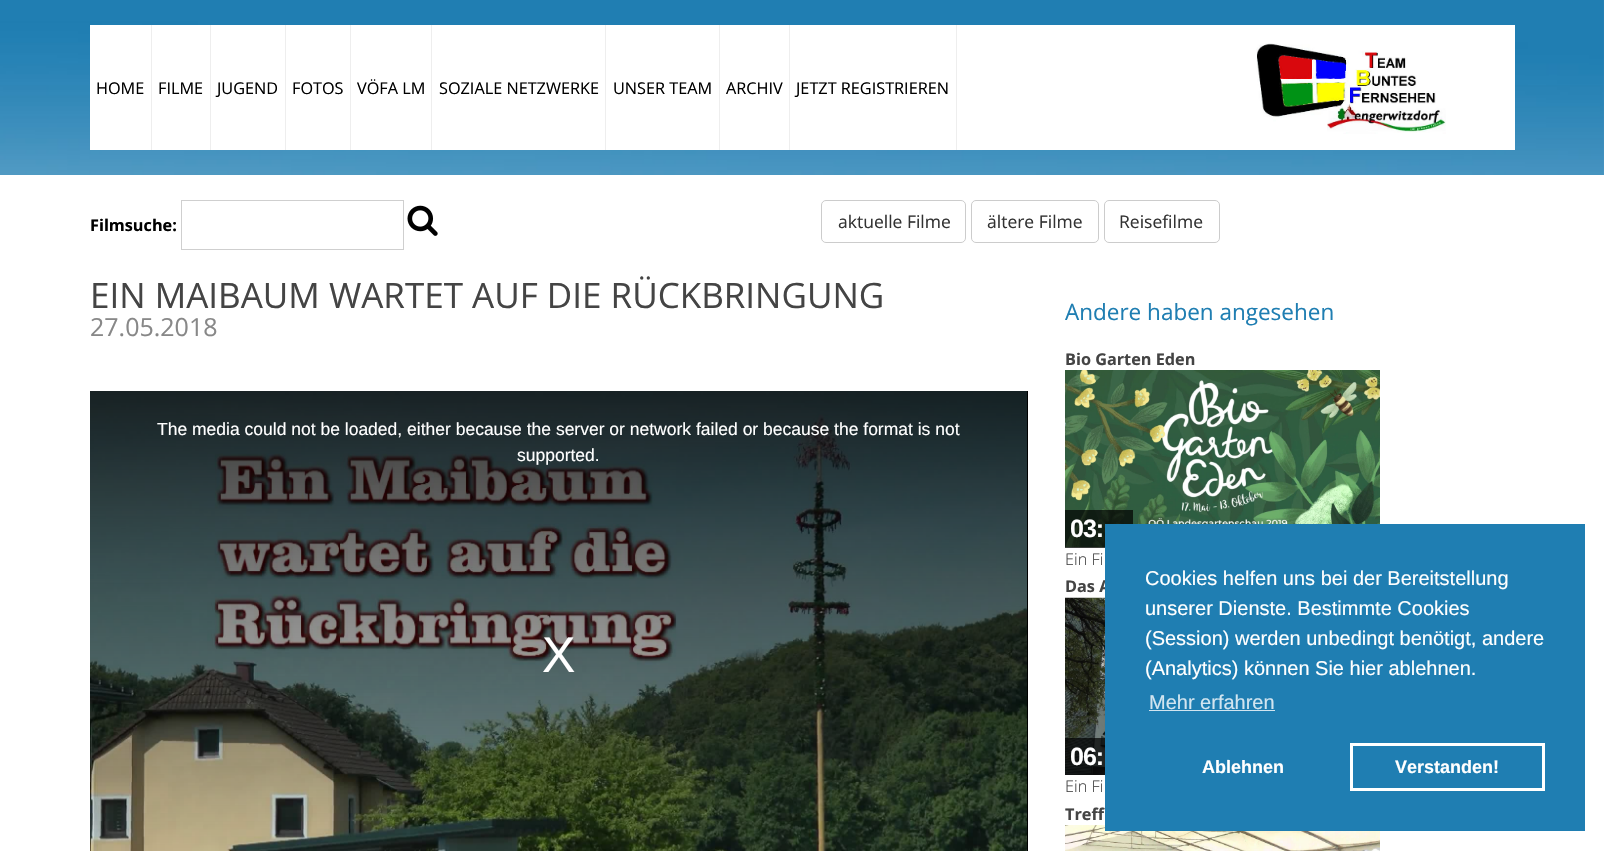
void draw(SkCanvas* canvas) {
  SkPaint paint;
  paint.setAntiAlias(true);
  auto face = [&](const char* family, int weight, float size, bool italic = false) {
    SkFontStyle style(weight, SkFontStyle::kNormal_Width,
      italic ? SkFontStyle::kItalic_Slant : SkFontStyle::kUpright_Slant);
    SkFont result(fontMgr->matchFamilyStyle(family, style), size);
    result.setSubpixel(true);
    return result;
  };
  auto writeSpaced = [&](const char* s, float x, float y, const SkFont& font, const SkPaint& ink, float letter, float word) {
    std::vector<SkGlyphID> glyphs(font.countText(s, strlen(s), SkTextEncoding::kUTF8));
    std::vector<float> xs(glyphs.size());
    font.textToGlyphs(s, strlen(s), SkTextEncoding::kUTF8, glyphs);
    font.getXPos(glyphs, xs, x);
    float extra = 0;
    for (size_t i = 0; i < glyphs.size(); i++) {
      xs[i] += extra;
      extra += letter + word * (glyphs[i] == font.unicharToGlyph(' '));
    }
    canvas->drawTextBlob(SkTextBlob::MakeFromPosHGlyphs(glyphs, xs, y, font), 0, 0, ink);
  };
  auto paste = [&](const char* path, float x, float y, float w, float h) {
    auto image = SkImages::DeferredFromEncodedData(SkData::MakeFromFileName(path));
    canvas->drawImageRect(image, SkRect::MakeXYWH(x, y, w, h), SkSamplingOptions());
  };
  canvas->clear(0xffffffff);
  paste("img/1.png", 0, 0, 1604, 175);
  {
    const struct { float x, y, w, h; SkColor color; } items[] = {
      {90, 25, 1425, 125, 0xffffffff},
      {151, 25, 1, 125, 0xffeeeeee},
      {210, 25, 1, 125, 0xffeeeeee},
      {285, 25, 1, 125, 0xffeeeeee},
      {350, 25, 1, 125, 0xffeeeeee},
      {431, 25, 1, 125, 0xffeeeeee},
      {605, 25, 1, 125, 0xffeeeeee},
      {719, 25, 1, 125, 0xffeeeeee},
      {789, 25, 1, 125, 0xffeeeeee},
      {956, 25, 1, 125, 0xffeeeeee},
    };
    for (auto [x, y, w, h, color] : items) {
      paint.setColor(color);
      canvas->drawRect(SkRect::MakeXYWH(x, y, w, h), paint);
    }
  }
  paste("img/2.png", 1256, 43, 190, 91);
  paint.setStroke(true);
  paint.setStrokeWidth(1);
  paint.setColor(0xffcfcfcf);
  canvas->drawRect(SkRect::MakeXYWH(181.5f, 200.5f, 222, 49), paint);
  paste("img/3.png", 407, 205, 31, 31);
  paint.setColor(0xffcccccc);
  canvas->drawRoundRect(SkRect::MakeXYWH(821.5f, 200.5f, 144, 42), 4.5f, 4.5f, paint);
  canvas->drawRoundRect(SkRect::MakeXYWH(971.5f, 200.5f, 127, 42), 4.5f, 4.5f, paint);
  canvas->drawRoundRect(SkRect::MakeXYWH(1104.5f, 200.5f, 115, 42), 4.5f, 4.5f, paint);
  paint.setStroke(false);
  paint.setColor(0xff000000);
  canvas->drawRect(SkRect::MakeXYWH(1027, 391, 1, 460), paint);
  paste("img/4.png", 90, 391, 937, 460);
  paste("img/5.png", 1065, 370, 315, 178);
  paint.setColor(0xb3000000);
  canvas->drawRect(SkRect::MakeXYWH(1065, 510, 68, 38), paint);
  paste("img/6.png", 1065, 597, 40, 178);
  canvas->drawRect(SkRect::MakeXYWH(1065, 738, 40, 37), paint);
  paste("img/7.png", 1065, 825, 315, 26);
  auto f0 = face("Open Sans", 400, 16.25f);
  paint.setColor(0xff000000);
  {
    const struct { const char* s; float x, y; } items[] = {
      {"HOME", 96, 94},
      {"FILME", 158, 94},
      {"JUGEND", 217, 94},
      {"FOTOS", 292, 94},
      {"VÖFA LM", 357, 94},
      {"SOZIALE NETZWERKE", 439, 94},
      {"UNSER TEAM", 613, 94},
      {"ARCHIV", 726, 94},
      {"JETZT REGISTRIEREN", 796, 94},
    };
    for (auto [s, x, y] : items) {
      canvas->drawString(s, x, y, f0, paint);
    }
  }
  auto f1 = face("Open Sans", 700, 16.25f);
  canvas->drawString("Filmsuche:", 90, 231, f1, paint);
  auto f2 = face("Open Sans", 400, 17.5f);
  paint.setColor(0xff333333);
  {
    const struct { const char* s; float x, y; } items[] = {
      {"aktuelle Filme", 838, 228},
      {"ältere Filme", 987, 228},
      {"Reisefilme", 1119, 228},
    };
    for (auto [s, x, y] : items) {
      canvas->drawString(s, x, y, f2, paint);
    }
  }
  auto f3 = face("Open Sans", 400, 35);
  paint.setColor(0xff444444);
  canvas->drawString("EIN MAIBAUM WARTET AUF DIE RÜCKBRINGUNG", 90, 308, f3, paint);
  auto f4 = face("Open Sans", 400, 25);
  paint.setColor(0xff888888);
  canvas->drawString("27.05.2018", 90, 336, f4, paint);
  auto f5 = face("Liberation Sans", 400, 17.5f);
  paint.setColor(0xffffffff);
  canvas->drawString("The media could not be loaded, either because the server or network failed or because the format is not", 157, 435, f5, paint);
  canvas->drawString("supported.", 517, 461, f5, paint);
  auto f6 = face("Liberation Sans", 400, 50);
  canvas->drawString("X", 542, 672, f6, paint);
  auto f7 = face("Open Sans", 400, 22.5f);
  paint.setColor(0xff1f7eb2);
  canvas->drawString("Andere haben angesehen", 1065, 320, f7, paint);
  paint.setColor(0xff444444);
  canvas->drawString("Bio Garten Eden", 1065, 365, f1, paint);
  auto f8 = face("Liberation Sans", 700, 25);
  paint.setColor(0xffffffff);
  writeSpaced("03:", 1070, 537, f8, paint, -1, 0);
  auto f9 = face("Open Sans", 300, 16.25f);
  paint.setColor(0xff444444);
  canvas->drawString("Ein Fi", 1065, 565, f9, paint);
  canvas->drawString("Das A", 1065, 592, f1, paint);
  paint.setColor(0xffffffff);
  writeSpaced("06:", 1070, 765, f8, paint, -1, 0);
  paint.setColor(0xff444444);
  canvas->drawString("Ein Fi", 1065, 792, f9, paint);
  canvas->drawString("Treff", 1065, 820, f1, paint);
  paint.setColor(0xff1f7eb2);
  canvas->drawRect(SkRect::MakeXYWH(1105, 524, 480, 307), paint);
  auto f10 = face("Liberation Sans", 400, 20);
  paint.setColor(0xffffffff);
  {
    const struct { const char* s; float x, y; } items[] = {
      {"Cookies helfen uns bei der Bereitstellung", 1145, 585},
      {"unserer Dienste. Bestimmte Cookies", 1145, 615},
      {"(Session) werden unbedingt benötigt, andere", 1145, 645},
      {"(Analytics) können Sie hier ablehnen.", 1145, 675},
    };
    for (auto [s, x, y] : items) {
      canvas->drawString(s, x, y, f10, paint);
    }
  }
  paint.setColor(0xffd2e5f0);
  canvas->drawString("Mehr erfahren", 1149, 709, f10, paint);
  canvas->drawRect(SkRect::MakeXYWH(1149, 710, 126, 1), paint);
  auto f11 = face("Liberation Sans", 700, 18);
  paint.setColor(0xffffffff);
  canvas->drawString("Ablehnen", 1202, 773, f11, paint);
  paint.setStroke(true);
  paint.setStrokeWidth(3);
  canvas->drawRect(SkRect::MakeXYWH(1351.5f, 744.5f, 192, 45), paint);
  paint.setStroke(false);
  canvas->drawString("Verstanden!", 1395, 773, f11, paint);
}
